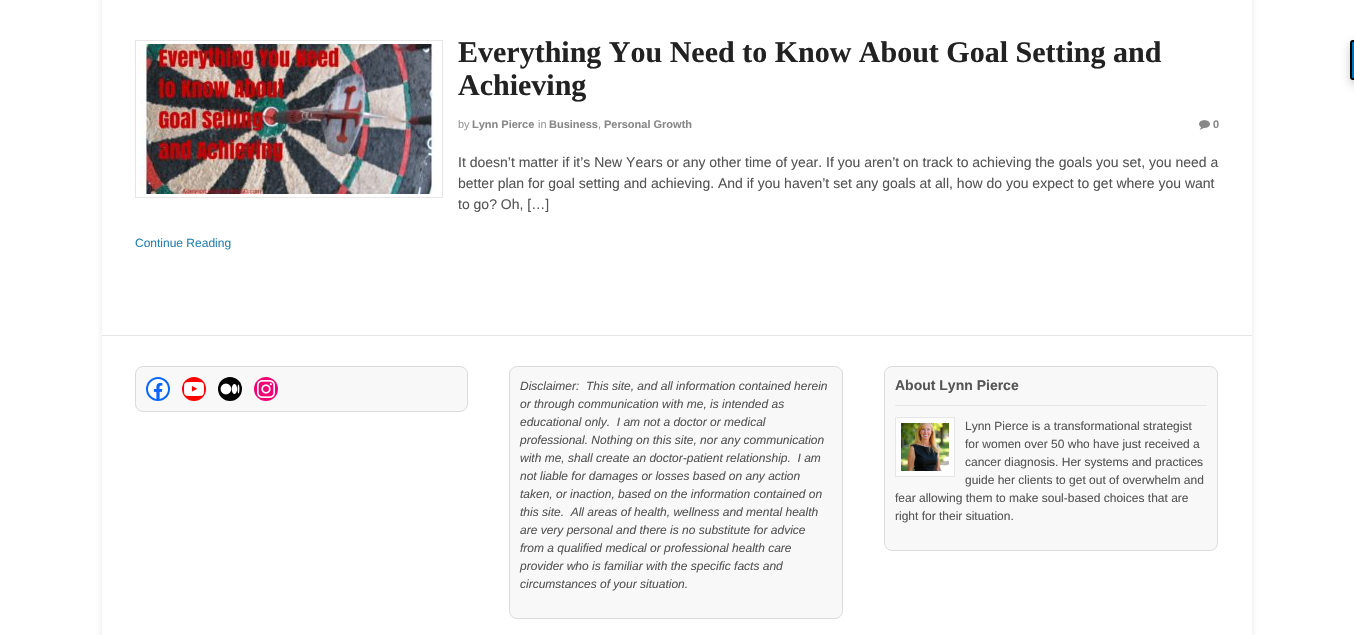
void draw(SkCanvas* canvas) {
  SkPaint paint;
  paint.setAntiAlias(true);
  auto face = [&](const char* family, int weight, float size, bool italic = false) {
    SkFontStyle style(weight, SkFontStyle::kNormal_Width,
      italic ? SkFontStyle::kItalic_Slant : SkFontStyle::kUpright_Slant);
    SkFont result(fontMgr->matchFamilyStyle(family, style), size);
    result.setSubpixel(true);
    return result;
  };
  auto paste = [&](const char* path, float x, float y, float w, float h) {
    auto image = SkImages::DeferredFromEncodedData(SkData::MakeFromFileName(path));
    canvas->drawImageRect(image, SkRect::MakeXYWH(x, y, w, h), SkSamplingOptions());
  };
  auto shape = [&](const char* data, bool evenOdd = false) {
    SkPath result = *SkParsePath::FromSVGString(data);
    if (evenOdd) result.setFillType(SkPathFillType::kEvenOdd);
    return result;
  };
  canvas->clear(0xffffffff);
  canvas->save();
  canvas->clipPath(shape("M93 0H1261V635H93ZM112-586H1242C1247.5-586 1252-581.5 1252-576V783C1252 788.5 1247.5 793 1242 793H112C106.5 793 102 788.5 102 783V-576C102-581.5 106.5-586 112-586Z", true), true);
  paint.setColor(0x1a000000);
  paint.setMaskFilter(SkMaskFilter::MakeBlur(kNormal_SkBlurStyle, 2.5f));
  canvas->drawRoundRect(SkRect::MakeXYWH(102, -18, 1150, 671), 10, 10, paint);
  paint.setMaskFilter(nullptr);
  canvas->restore();
  paint.setStroke(true);
  paint.setStrokeWidth(1);
  paint.setColor(0xffe6e6e6);
  canvas->drawRect(SkRect::MakeXYWH(135.5f, 40.5f, 307, 157), paint);
  paste("img/1.png", 139, 44, 298, 150);
  paste("img/2.png", 1199, 120, 11, 10);
  paint.setStroke(false);
  canvas->drawRect(SkRect::MakeXYWH(102, 335, 1150, 1), paint);
  paint.setColor(0xfff8f8f8);
  canvas->drawRoundRect(SkRect::MakeXYWH(135.5f, 366.5f, 332, 45), 7.5f, 7.5f, paint);
  paint.setStroke(true);
  paint.setColor(0xffdbdbdb);
  canvas->drawRoundRect(SkRect::MakeXYWH(135.5f, 366.5f, 332, 45), 7.5f, 7.5f, paint);
  paint.setStroke(false);
  paint.setColor(0xff0866ff);
  canvas->drawCircle(158, 389, 12, paint);
  paste("img/3.png", 148, 379, 20, 20);
  paint.setColor(0xffff0000);
  canvas->drawCircle(194, 389, 12, paint);
  paste("img/4.png", 184, 382, 20, 14);
  paint.setColor(0xff000000);
  canvas->drawCircle(230, 389, 12, paint);
  paste("img/5.png", 220, 383, 20, 12);
  paint.setColor(0xfff00075);
  canvas->drawCircle(266, 389, 12, paint);
  paste("img/6.png", 257, 380, 18, 18);
  paint.setColor(0xfff8f8f8);
  canvas->drawRoundRect(SkRect::MakeXYWH(509.5f, 366.5f, 333, 252), 7.5f, 7.5f, paint);
  paint.setStroke(true);
  paint.setColor(0xffdbdbdb);
  canvas->drawRoundRect(SkRect::MakeXYWH(509.5f, 366.5f, 333, 252), 7.5f, 7.5f, paint);
  paint.setStroke(false);
  paint.setColor(0xfff8f8f8);
  canvas->drawRoundRect(SkRect::MakeXYWH(884.5f, 366.5f, 333, 184), 7.5f, 7.5f, paint);
  paint.setStroke(true);
  paint.setColor(0xffdbdbdb);
  canvas->drawRoundRect(SkRect::MakeXYWH(884.5f, 366.5f, 333, 184), 7.5f, 7.5f, paint);
  paint.setStroke(false);
  paint.setColor(0xffe6e6e6);
  canvas->drawRect(SkRect::MakeXYWH(895, 405, 312, 1), paint);
  paint.setColor(0xfffdfdfd);
  canvas->drawRect(SkRect::MakeXYWH(895.5f, 417.5f, 59, 59), paint);
  paint.setStroke(true);
  paint.setColor(0xffe6e6e6);
  canvas->drawRect(SkRect::MakeXYWH(895.5f, 417.5f, 59, 59), paint);
  paste("img/7.png", 901, 423, 48, 48);
  paint.setStroke(false);
  paint.setColor(0x33000000);
  paint.setMaskFilter(SkMaskFilter::MakeBlur(kNormal_SkBlurStyle, 5));
  canvas->drawRoundRect(SkRect::MakeXYWH(1350, 44, 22, 40), 3, 3, paint);
  paint.setMaskFilter(nullptr);
  paint.setColor(0xff0073b7);
  canvas->drawPath(shape("M1353 41H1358V79H1353C1352 79 1351 78 1351 77V43C1351 42 1352 41 1353 41Z"), paint);
  paint.setStroke(true);
  paint.setStrokeWidth(2);
  paint.setColor(0xff000000);
  canvas->drawPath(shape("M1353 41H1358V79H1353C1352 79 1351 78 1351 77V43C1351 42 1352 41 1353 41Z"), paint);
  auto f0 = face("Liberation Serif", 700, 30);
  paint.setStroke(false);
  paint.setColor(0xff222222);
  canvas->drawString("Everything You Need to Know About Goal Setting and", 458, 62, f0, paint);
  canvas->drawString("Achieving", 458, 95, f0, paint);
  auto f1 = face("Liberation Sans", 400, 11);
  paint.setColor(0xff999999);
  canvas->drawString("by", 458, 128, f1, paint);
  auto f2 = face("Liberation Sans", 700, 11);
  paint.setColor(0xff888888);
  canvas->drawString("Lynn Pierce", 472, 128, f2, paint);
  paint.setColor(0xff999999);
  canvas->drawString("in", 538, 128, f1, paint);
  paint.setColor(0xff888888);
  canvas->drawString("Business", 549, 128, f2, paint);
  paint.setColor(0xff999999);
  canvas->drawString(",", 598, 128, f1, paint);
  paint.setColor(0xff888888);
  canvas->drawString("Personal Growth", 604, 128, f2, paint);
  canvas->drawString("0", 1213, 128, f2, paint);
  auto f3 = face("Liberation Sans", 400, 14);
  paint.setColor(0xff555555);
  {
    const struct { const char* s; float x, y; } items[] = {
      {"It doesn’t matter if it’s New Years or any other time of year. If you aren’t on track to achieving the goals you set, you need a", 458, 167},
      {"better plan for goal setting and achieving. And if you haven’t set any goals at all, how do you expect to get where you want", 458, 188},
      {"to go? Oh, […]", 458, 209},
    };
    for (auto [s, x, y] : items) {
      canvas->drawString(s, x, y, f3, paint);
    }
  }
  auto f4 = face("Liberation Sans", 400, 12);
  paint.setColor(0xff2582ad);
  canvas->drawString("Continue Reading", 135, 247, f4, paint);
  auto f5 = face("Liberation Sans", 400, 12, true);
  paint.setColor(0xff555555);
  {
    const struct { const char* s; float x, y; } items[] = {
      {"Disclaimer:  This site, and all information contained herein", 520, 390},
      {"or through communication with me, is intended as", 520, 408},
      {"educational only.  I am not a doctor or medical", 520, 426},
      {"professional. Nothing on this site, nor any communication", 520, 444},
      {"with me, shall create an doctor-patient relationship.  I am", 520, 462},
      {"not liable for damages or losses based on any action", 520, 480},
      {"taken, or inaction, based on the information contained on", 520, 498},
      {"this site.  All areas of health, wellness and mental health", 520, 516},
      {"are very personal and there is no substitute for advice", 520, 534},
      {"from a qualified medical or professional health care", 520, 552},
      {"provider who is familiar with the specific facts and", 520, 570},
      {"circumstances of your situation.", 520, 588},
    };
    for (auto [s, x, y] : items) {
      canvas->drawString(s, x, y, f5, paint);
    }
  }
  auto f6 = face("Liberation Sans", 700, 14);
  canvas->drawString("About Lynn Pierce", 895, 390, f6, paint);
  {
    const struct { const char* s; float x, y; } items[] = {
      {"Lynn Pierce is a transformational strategist", 965, 430},
      {"for women over 50 who have just received a", 965, 448},
      {"cancer diagnosis. Her systems and practices", 965, 466},
      {"guide her clients to get out of overwhelm and", 965, 484},
      {"fear allowing them to make soul-based choices that are", 895, 502},
      {"right for their situation.", 895, 520},
    };
    for (auto [s, x, y] : items) {
      canvas->drawString(s, x, y, f4, paint);
    }
  }
}
